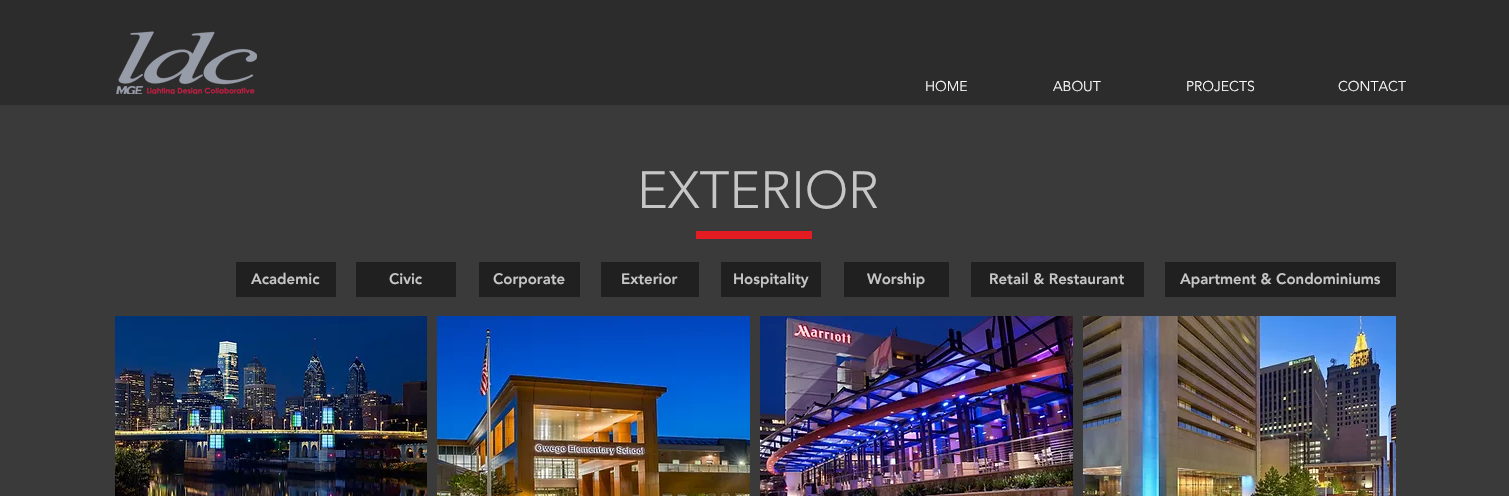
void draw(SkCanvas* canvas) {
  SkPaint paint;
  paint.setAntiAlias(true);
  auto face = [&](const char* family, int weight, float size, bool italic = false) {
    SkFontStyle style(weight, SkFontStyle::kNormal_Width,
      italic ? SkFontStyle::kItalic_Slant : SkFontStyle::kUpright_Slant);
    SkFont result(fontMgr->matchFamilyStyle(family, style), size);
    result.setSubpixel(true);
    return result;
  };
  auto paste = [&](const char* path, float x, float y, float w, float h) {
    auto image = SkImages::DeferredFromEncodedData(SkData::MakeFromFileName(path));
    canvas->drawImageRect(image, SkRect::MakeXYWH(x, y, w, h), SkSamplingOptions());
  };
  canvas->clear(0xff3b3a3a);
  paint.setColor(0xff2d2c2c);
  canvas->drawRect(SkRect::MakeXYWH(0, 0, 1509, 105), paint);
  paste("img/1.png", 116, 31, 141, 63);
  {
    const struct { float x, y, w, h; SkColor color; } items[] = {
      {696, 231, 116, 8, 0xffe21c21},
      {236, 262, 100, 35, 0xff202020},
      {356, 262, 100, 35, 0xff202020},
      {479, 262, 101, 35, 0xff202020},
      {601, 262, 98, 35, 0xff202020},
      {721, 262, 100, 35, 0xff202020},
      {844, 262, 105, 35, 0xff202020},
      {971, 262, 173, 35, 0xff202020},
      {1165, 262, 231, 35, 0xff202020},
    };
    for (auto [x, y, w, h, color] : items) {
      paint.setColor(color);
      canvas->drawRect(SkRect::MakeXYWH(x, y, w, h), paint);
    }
  }
  paste("img/2.png", 115, 316, 312, 180);
  paste("img/3.png", 437, 316, 313, 180);
  paste("img/4.png", 760, 316, 313, 180);
  paste("img/5.png", 1083, 316, 313, 180);
  auto f0 = face("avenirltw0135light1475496", 300, 14);
  paint.setColor(0xffffffff);
  {
    const struct { const char* s; float x, y; } items[] = {
      {"HOME", 925, 91},
      {"ABOUT", 1053, 91},
      {"PROJECTS", 1186, 91},
      {"CONTACT", 1338, 91},
    };
    for (auto [s, x, y] : items) {
      canvas->drawString(s, x, y, f0, paint);
    }
  }
  auto f1 = face("avenirltw0135light1475496", 300, 52);
  paint.setColor(0xffc6c6c6);
  canvas->drawString("EXTERIOR", 637, 208, f1, paint);
  auto f2 = face("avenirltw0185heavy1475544", 900, 15);
  {
    const struct { const char* s; float x, y; } items[] = {
      {"Academic", 251, 284},
      {"Civic", 389, 284},
      {"Corporate", 493, 284},
      {"Exterior", 621, 284},
      {"Hospitality", 733, 284},
      {"Worship", 867, 284},
      {"Retail & Restaurant", 989, 284},
      {"Apartment & Condominiums", 1180, 284},
    };
    for (auto [s, x, y] : items) {
      canvas->drawString(s, x, y, f2, paint);
    }
  }
}
